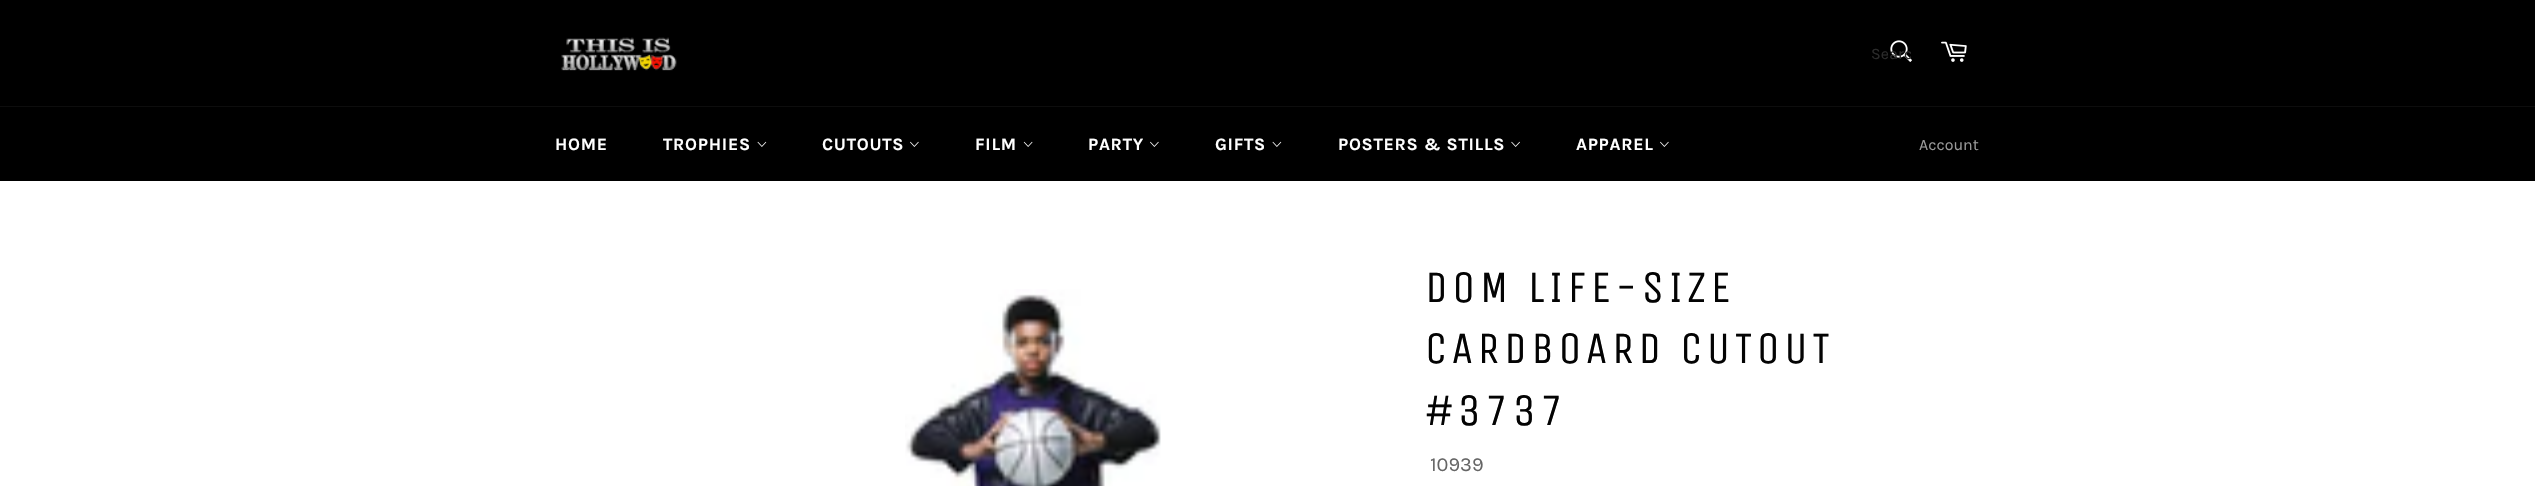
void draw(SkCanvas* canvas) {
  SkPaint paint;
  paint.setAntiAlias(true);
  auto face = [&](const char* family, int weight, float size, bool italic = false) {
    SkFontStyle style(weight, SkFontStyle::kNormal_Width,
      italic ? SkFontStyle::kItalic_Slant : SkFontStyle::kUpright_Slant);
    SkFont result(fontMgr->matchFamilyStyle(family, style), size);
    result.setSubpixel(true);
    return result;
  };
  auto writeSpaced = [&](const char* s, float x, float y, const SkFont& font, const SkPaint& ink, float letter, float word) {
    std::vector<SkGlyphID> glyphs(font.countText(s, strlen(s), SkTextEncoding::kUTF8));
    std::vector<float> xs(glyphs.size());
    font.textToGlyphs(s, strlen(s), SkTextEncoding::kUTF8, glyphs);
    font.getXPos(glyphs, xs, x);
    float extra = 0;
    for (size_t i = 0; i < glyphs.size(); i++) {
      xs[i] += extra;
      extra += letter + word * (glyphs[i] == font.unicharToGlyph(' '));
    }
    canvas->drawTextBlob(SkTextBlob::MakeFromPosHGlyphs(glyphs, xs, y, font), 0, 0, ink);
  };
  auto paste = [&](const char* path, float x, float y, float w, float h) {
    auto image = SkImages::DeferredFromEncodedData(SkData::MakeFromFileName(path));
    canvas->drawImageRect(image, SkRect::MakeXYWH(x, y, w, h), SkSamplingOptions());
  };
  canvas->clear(0xff000000);
  paste("img/1.png", 561, 37, 116, 34);
  paste("img/2.png", 1890, 40, 22, 22);
  paste("img/3.png", 1941, 41, 26, 21);
  paint.setColor(0xff0d0d0d);
  canvas->drawRect(SkRect::MakeXYWH(0, 106, 2535, 1), paint);
  paste("img/4.png", 757, 141, 10, 6);
  paste("img/5.png", 910, 141, 9, 6);
  paste("img/6.png", 1023, 141, 10, 6);
  paste("img/5.png", 1150, 141, 9, 6);
  paste("img/4.png", 1272, 141, 10, 6);
  paste("img/7.png", 1511, 141, 9, 6);
  paste("img/5.png", 1660, 141, 9, 6);
  paint.setColor(0xffffffff);
  canvas->drawRect(SkRect::MakeXYWH(0, 181, 2535, 305), paint);
  paste("img/8.png", 905, 289, 256, 197);
  canvas->save();
  canvas->clipRect(SkRect::MakeXYWH(1871, 44, 40, 19));
  auto f0 = face("Karla", 400, 16);
  paint.setColor(0xff2b2b2b);
  canvas->drawString("Searc", 1871, 59, f0, paint);
  canvas->restore();
  auto f1 = face("Karla", 700, 17.5f);
  paint.setColor(0xffffffff);
  {
    const struct { const char* s; float x, y; } items[] = {
      {"HOME", 555, 150},
      {"TROPHIES", 663, 150},
      {"CUTOUTS", 822, 150},
      {"FILM", 975, 150},
      {"PARTY", 1088, 150},
      {"GIFTS", 1215, 150},
      {"POSTERS & STILLS", 1338, 150},
      {"APPAREL", 1576, 150},
    };
    for (auto [s, x, y] : items) {
      writeSpaced(s, x, y, f1, paint, 0.75f, 0);
    }
  }
  paint.setColor(0xff999999);
  canvas->drawString("Account", 1919, 150, f0, paint);
  auto f2 = face("Unica One", 400, 45);
  paint.setColor(0xff030303);
  {
    const struct { const char* s; float x, y; } items[] = {
      {"DOM LIFE-SIZE", 1425, 302},
      {"CARDBOARD CUTOUT", 1425, 363},
      {"#3737", 1425, 425},
    };
    for (auto [s, x, y] : items) {
      writeSpaced(s, x, y, f2, paint, 4.5f, 0);
    }
  }
  auto f3 = face("Karla", 400, 20);
  paint.setColor(0xff666666);
  canvas->drawString("10939", 1430, 471, f3, paint);
}
